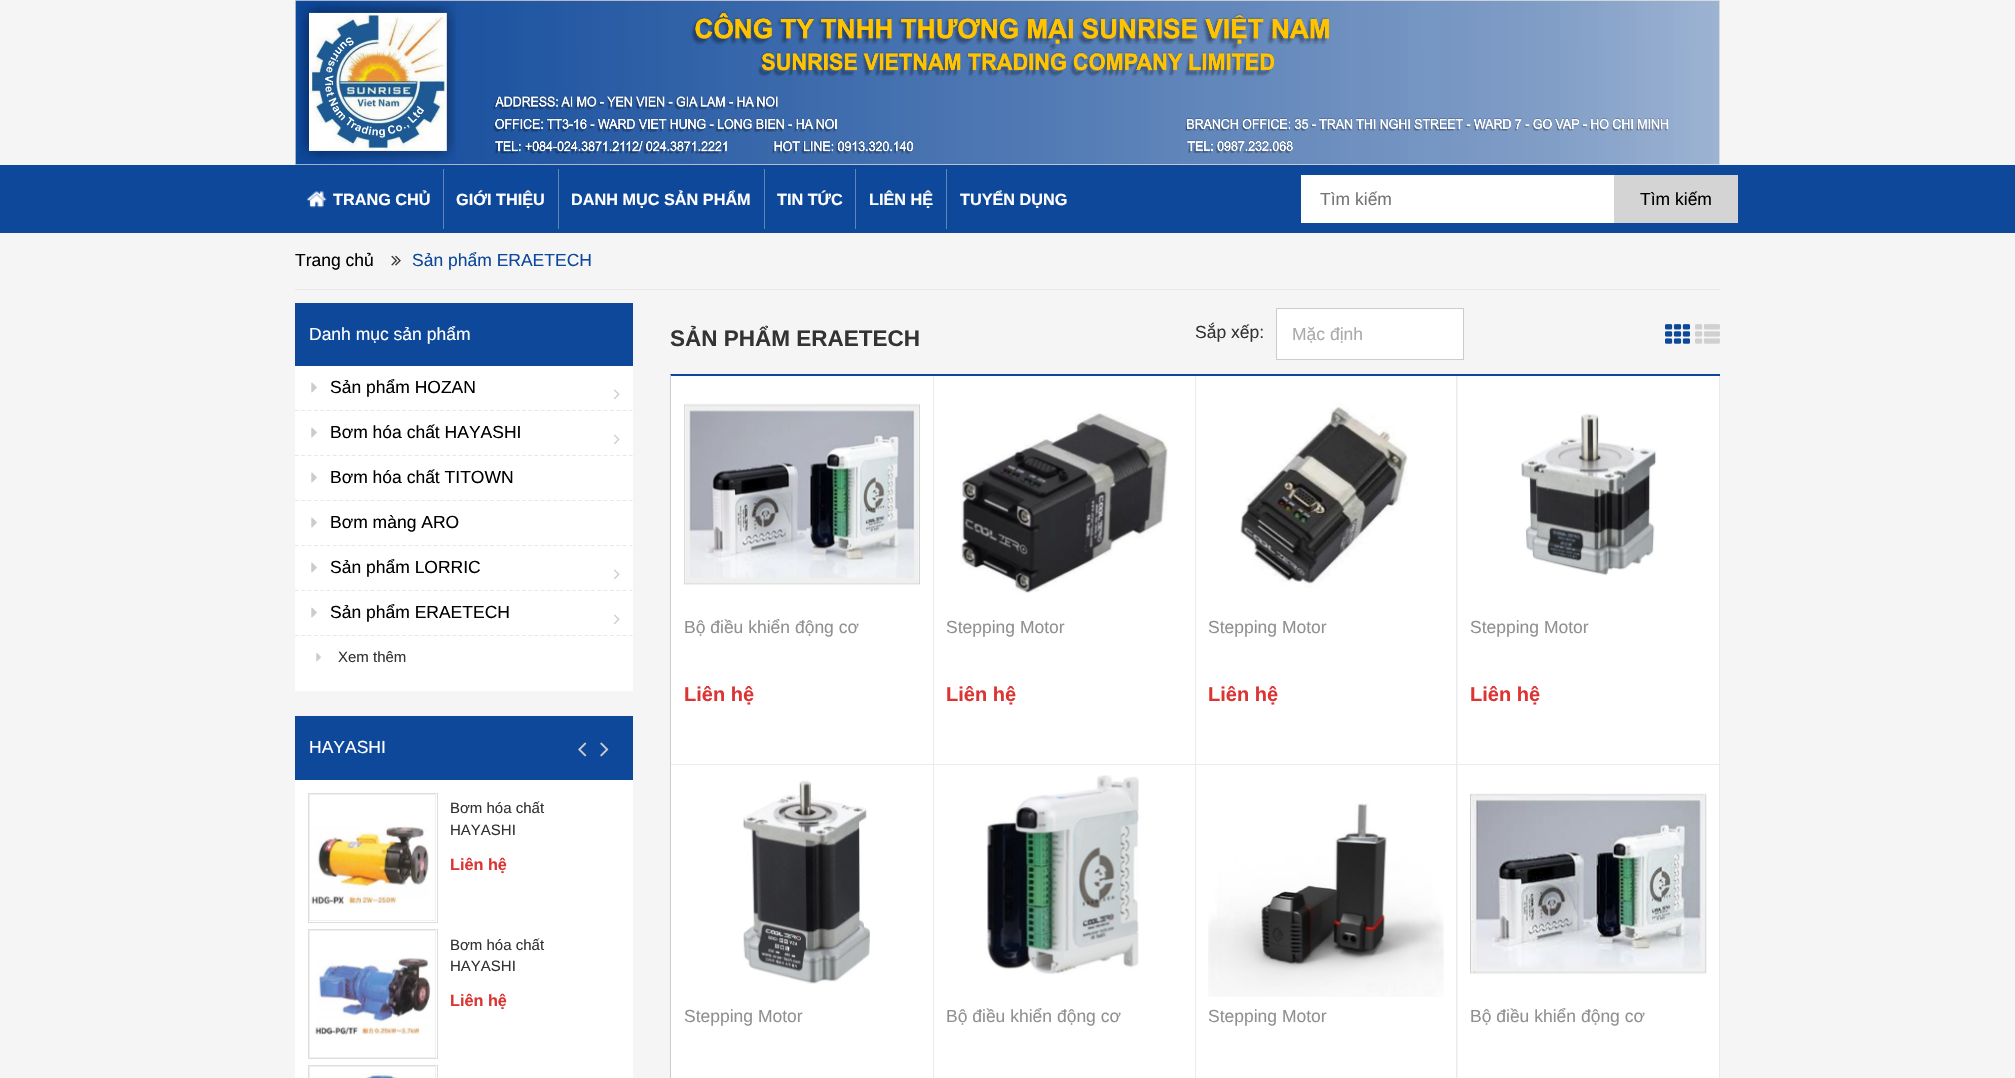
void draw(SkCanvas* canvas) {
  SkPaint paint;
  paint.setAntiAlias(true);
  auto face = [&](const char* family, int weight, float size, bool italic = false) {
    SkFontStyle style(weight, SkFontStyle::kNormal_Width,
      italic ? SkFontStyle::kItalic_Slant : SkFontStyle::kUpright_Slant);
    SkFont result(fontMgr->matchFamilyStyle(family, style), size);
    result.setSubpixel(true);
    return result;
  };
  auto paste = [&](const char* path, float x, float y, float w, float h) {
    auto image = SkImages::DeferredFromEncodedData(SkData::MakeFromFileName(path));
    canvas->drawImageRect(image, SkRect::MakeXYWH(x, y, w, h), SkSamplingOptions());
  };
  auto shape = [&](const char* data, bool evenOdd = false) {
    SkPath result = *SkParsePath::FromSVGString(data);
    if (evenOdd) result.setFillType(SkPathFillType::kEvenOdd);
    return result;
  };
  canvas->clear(0xfff5f5f5);
  paste("img/1.png", 295, 0, 1425, 165);
  paint.setColor(0xff0e489a);
  canvas->drawRect(SkRect::MakeXYWH(0, 165, 2015, 68), paint);
  paint.setColor(0xff6185b8);
  canvas->drawRect(SkRect::MakeXYWH(443, 169, 1, 60), paint);
  paste("img/2.png", 307, 191, 20, 17);
  {
    const struct { float x, y, w, h; SkColor color; } items[] = {
      {558, 169, 1, 60, 0xff6185b8},
      {764, 169, 1, 60, 0xff6185b8},
      {855, 169, 1, 60, 0xff6185b8},
      {946, 169, 1, 60, 0xff6185b8},
      {1301, 175, 313, 48, 0xffffffff},
      {1614, 175, 124, 48, 0xffd4d4d4},
      {295, 289, 1425, 1, 0xffe9e9e9},
    };
    for (auto [x, y, w, h, color] : items) {
      paint.setColor(color);
      canvas->drawRect(SkRect::MakeXYWH(x, y, w, h), paint);
    }
  }
  paste("img/3.png", 391, 255, 10, 11);
  paint.setColor(0xffffffff);
  canvas->drawRect(SkRect::MakeXYWH(295, 366, 338, 325), paint);
  paint.setColor(0xff0e489a);
  canvas->drawRect(SkRect::MakeXYWH(295, 303, 338, 63), paint);
  paint.setStroke(true);
  paint.setStrokeWidth(1.2f);
  paint.setColor(0xffe7e7e7);
  paint.setPathEffect(SkDashPathEffect::Make({{3.75f, 2.55f}}, 0));
  canvas->drawPath(shape("M295 410.5H632.5"), paint);
  paint.setPathEffect(nullptr);
  paste("img/4.png", 311, 382, 6, 11);
  paste("img/5.png", 614, 389, 6, 11);
  paint.setPathEffect(SkDashPathEffect::Make({{3.75f, 2.55f}}, 0));
  canvas->drawPath(shape("M295 455.5H632.5"), paint);
  paint.setPathEffect(nullptr);
  paste("img/4.png", 311, 427, 6, 11);
  paste("img/5.png", 614, 434, 6, 11);
  paint.setPathEffect(SkDashPathEffect::Make({{3.75f, 2.55f}}, 0));
  canvas->drawPath(shape("M295 500.5H632.5"), paint);
  paint.setPathEffect(nullptr);
  paste("img/4.png", 311, 472, 6, 11);
  paint.setPathEffect(SkDashPathEffect::Make({{3.75f, 2.55f}}, 0));
  canvas->drawPath(shape("M295 545.5H632.5"), paint);
  paint.setPathEffect(nullptr);
  paste("img/4.png", 311, 517, 6, 11);
  paint.setPathEffect(SkDashPathEffect::Make({{3.75f, 2.55f}}, 0));
  canvas->drawPath(shape("M295 590.5H632.5"), paint);
  paint.setPathEffect(nullptr);
  paste("img/4.png", 311, 562, 6, 11);
  paste("img/5.png", 614, 569, 6, 11);
  paint.setPathEffect(SkDashPathEffect::Make({{3.75f, 2.55f}}, 0));
  canvas->drawPath(shape("M295 635.5H632.5"), paint);
  paint.setPathEffect(nullptr);
  paste("img/4.png", 311, 607, 6, 11);
  paste("img/5.png", 614, 614, 6, 11);
  paste("img/6.png", 316, 653, 5, 9);
  paint.setStroke(false);
  paint.setColor(0xffffffff);
  canvas->drawRect(SkRect::MakeXYWH(295, 780, 338, 298), paint);
  paint.setColor(0xff0e489a);
  canvas->drawRect(SkRect::MakeXYWH(295, 716, 338, 64), paint);
  paste("img/7.png", 578, 742, 9, 15);
  paste("img/8.png", 600, 742, 9, 15);
  paint.setStroke(true);
  paint.setStrokeWidth(1);
  paint.setColor(0xffe2dddd);
  canvas->drawRect(SkRect::MakeXYWH(308.5f, 793.5f, 129, 129), paint);
  paint.setColor(0xfff0f0f0);
  canvas->drawRect(SkRect::MakeXYWH(309.5f, 794.5f, 126, 126), paint);
  paste("img/9.png", 311, 826, 118, 80);
  paint.setColor(0xffe2dddd);
  canvas->drawRect(SkRect::MakeXYWH(308.5f, 929.5f, 129, 129), paint);
  paint.setColor(0xfff0f0f0);
  canvas->drawRect(SkRect::MakeXYWH(309.5f, 930.5f, 126, 127), paint);
  paste("img/10.png", 315, 957, 116, 78);
  paint.setColor(0xffe2dddd);
  canvas->drawRect(SkRect::MakeXYWH(308.5f, 1065.5f, 129, 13), paint);
  paint.setColor(0xfff0f0f0);
  canvas->drawRect(SkRect::MakeXYWH(309.5f, 1066.5f, 126, 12), paint);
  paste("img/11.png", 366, 1073, 31, 5);
  paint.setStroke(false);
  paint.setColor(0xffffffff);
  canvas->drawRect(SkRect::MakeXYWH(1276.5f, 308.5f, 187, 51), paint);
  paint.setStroke(true);
  paint.setColor(0xffcccccc);
  canvas->drawRect(SkRect::MakeXYWH(1276.5f, 308.5f, 187, 51), paint);
  paste("img/12.png", 1665, 324, 25, 20);
  paste("img/13.png", 1695, 324, 25, 20);
  paint.setStroke(false);
  paint.setColor(0xff0e489a);
  canvas->drawPath(shape("M670 374H1720V376H671Z"), paint);
  paint.setColor(0xffcccccc);
  canvas->drawPath(shape("M670 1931V374L671 376V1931Z"), paint);
  {
    const struct { float x, y, w, h; SkColor color; } items[] = {
      {933, 376, 1, 702, 0xffebebeb},
      {671, 764, 263, 1, 0xffebebeb},
      {671, 376, 262, 388, 0xffffffff},
    };
    for (auto [x, y, w, h, color] : items) {
      paint.setColor(color);
      canvas->drawRect(SkRect::MakeXYWH(x, y, w, h), paint);
    }
  }
  paste("img/14.png", 684, 403, 236, 182);
  {
    const struct { float x, y, w, h; SkColor color; } items[] = {
      {1195, 376, 1, 702, 0xffebebeb},
      {934, 764, 262, 1, 0xffebebeb},
      {934, 376, 261, 388, 0xffffffff},
    };
    for (auto [x, y, w, h, color] : items) {
      paint.setColor(color);
      canvas->drawRect(SkRect::MakeXYWH(x, y, w, h), paint);
    }
  }
  paste("img/15.png", 960, 413, 208, 180);
  {
    const struct { float x, y, w, h; SkColor color; } items[] = {
      {1456, 376, 1, 702, 0xffebebeb},
      {1196, 764, 262, 1, 0xffebebeb},
      {1196, 376, 260, 388, 0xffffffff},
    };
    for (auto [x, y, w, h, color] : items) {
      paint.setColor(color);
      canvas->drawRect(SkRect::MakeXYWH(x, y, w, h), paint);
    }
  }
  paste("img/16.png", 1240, 403, 169, 185);
  {
    const struct { float x, y, w, h; SkColor color; } items[] = {
      {1719, 376, 1, 702, 0xffebebeb},
      {1458, 764, 262, 1, 0xffebebeb},
      {1458, 376, 261, 388, 0xffffffff},
    };
    for (auto [x, y, w, h, color] : items) {
      paint.setColor(color);
      canvas->drawRect(SkRect::MakeXYWH(x, y, w, h), paint);
    }
  }
  paste("img/17.png", 1521, 413, 136, 163);
  canvas->drawRect(SkRect::MakeXYWH(671, 765, 262, 313), paint);
  paste("img/18.png", 743, 780, 127, 204);
  canvas->drawRect(SkRect::MakeXYWH(934, 765, 261, 313), paint);
  paste("img/19.png", 986, 775, 153, 200);
  canvas->drawRect(SkRect::MakeXYWH(1196, 765, 260, 313), paint);
  paste("img/20.png", 1208, 803, 236, 194);
  canvas->drawRect(SkRect::MakeXYWH(1458, 765, 261, 313), paint);
  paste("img/21.png", 1470, 793, 237, 182);
  auto f0 = face("Liberation Sans", 700, 16.25f);
  {
    const struct { const char* s; float x, y; } items[] = {
      {"TRANG CHỦ", 333, 205},
      {"GIỚI THIỆU", 456, 205},
      {"DANH MỤC SẢN PHẨM", 571, 205},
      {"TIN TỨC", 777, 205},
      {"LIÊN HỆ", 869, 205},
      {"TUYỂN DỤNG", 960, 205},
    };
    for (auto [s, x, y] : items) {
      canvas->drawString(s, x, y, f0, paint);
    }
  }
  auto f1 = face("Liberation Sans", 400, 17.5f);
  paint.setColor(0xff757575);
  canvas->drawString("Tìm kiếm", 1320, 205, f1, paint);
  paint.setColor(0xff000000);
  canvas->drawString("Tìm kiếm", 1640, 205, f1, paint);
  canvas->drawString("Trang chủ", 295, 266, f1, paint);
  paint.setColor(0xff0e489a);
  canvas->drawString("Sản phẩm ERAETECH", 412, 266, f1, paint);
  paint.setColor(0xffffffff);
  canvas->drawString("Danh mục sản phẩm", 309, 340, f1, paint);
  paint.setColor(0xff000000);
  {
    const struct { const char* s; float x, y; } items[] = {
      {"Sản phẩm HOZAN", 330, 393},
      {"Bơm hóa chất HAYASHI", 330, 438},
      {"Bơm hóa chất TITOWN", 330, 483},
      {"Bơm màng ARO", 330, 528},
      {"Sản phẩm LORRIC", 330, 573},
      {"Sản phẩm ERAETECH", 330, 618},
    };
    for (auto [s, x, y] : items) {
      canvas->drawString(s, x, y, f1, paint);
    }
  }
  auto f2 = face("Liberation Sans", 400, 15);
  paint.setColor(0xff333333);
  canvas->drawString("Xem thêm", 338, 662, f2, paint);
  paint.setColor(0xffffffff);
  canvas->drawString("HAYASHI", 309, 753, f1, paint);
  paint.setColor(0xff333333);
  canvas->drawString("Bơm hóa chất", 450, 813, f2, paint);
  canvas->drawString("HAYASHI", 450, 835, f2, paint);
  paint.setColor(0xffdc3333);
  canvas->drawString("Liên hệ", 450, 870, f0, paint);
  paint.setColor(0xff333333);
  canvas->drawString("Bơm hóa chất", 450, 950, f2, paint);
  canvas->drawString("HAYASHI", 450, 971, f2, paint);
  paint.setColor(0xffdc3333);
  canvas->drawString("Liên hệ", 450, 1006, f0, paint);
  auto f3 = face("Liberation Sans", 700, 22.5f);
  paint.setColor(0xff333333);
  canvas->drawString("SẢN PHẨM ERAETECH", 670, 346, f3, paint);
  canvas->drawString("Sắp xếp:", 1195, 338, f1, paint);
  paint.setColor(0xffaaaaaa);
  canvas->drawString("Mặc định", 1292, 340, f1, paint);
  paint.setColor(0xff909090);
  canvas->drawString("Bộ điều khiển động cơ", 684, 633, f1, paint);
  auto f4 = face("Liberation Sans", 700, 20);
  paint.setColor(0xffdc3333);
  canvas->drawString("Liên hệ", 684, 701, f4, paint);
  paint.setColor(0xff909090);
  canvas->drawString("Stepping Motor", 946, 633, f1, paint);
  paint.setColor(0xffdc3333);
  canvas->drawString("Liên hệ", 946, 701, f4, paint);
  paint.setColor(0xff909090);
  canvas->drawString("Stepping Motor", 1208, 633, f1, paint);
  paint.setColor(0xffdc3333);
  canvas->drawString("Liên hệ", 1208, 701, f4, paint);
  paint.setColor(0xff909090);
  canvas->drawString("Stepping Motor", 1470, 633, f1, paint);
  paint.setColor(0xffdc3333);
  canvas->drawString("Liên hệ", 1470, 701, f4, paint);
  paint.setColor(0xff909090);
  {
    const struct { const char* s; float x, y; } items[] = {
      {"Stepping Motor", 684, 1022},
      {"Bộ điều khiển động cơ", 946, 1022},
      {"Stepping Motor", 1208, 1022},
      {"Bộ điều khiển động cơ", 1470, 1022},
    };
    for (auto [s, x, y] : items) {
      canvas->drawString(s, x, y, f1, paint);
    }
  }
}
